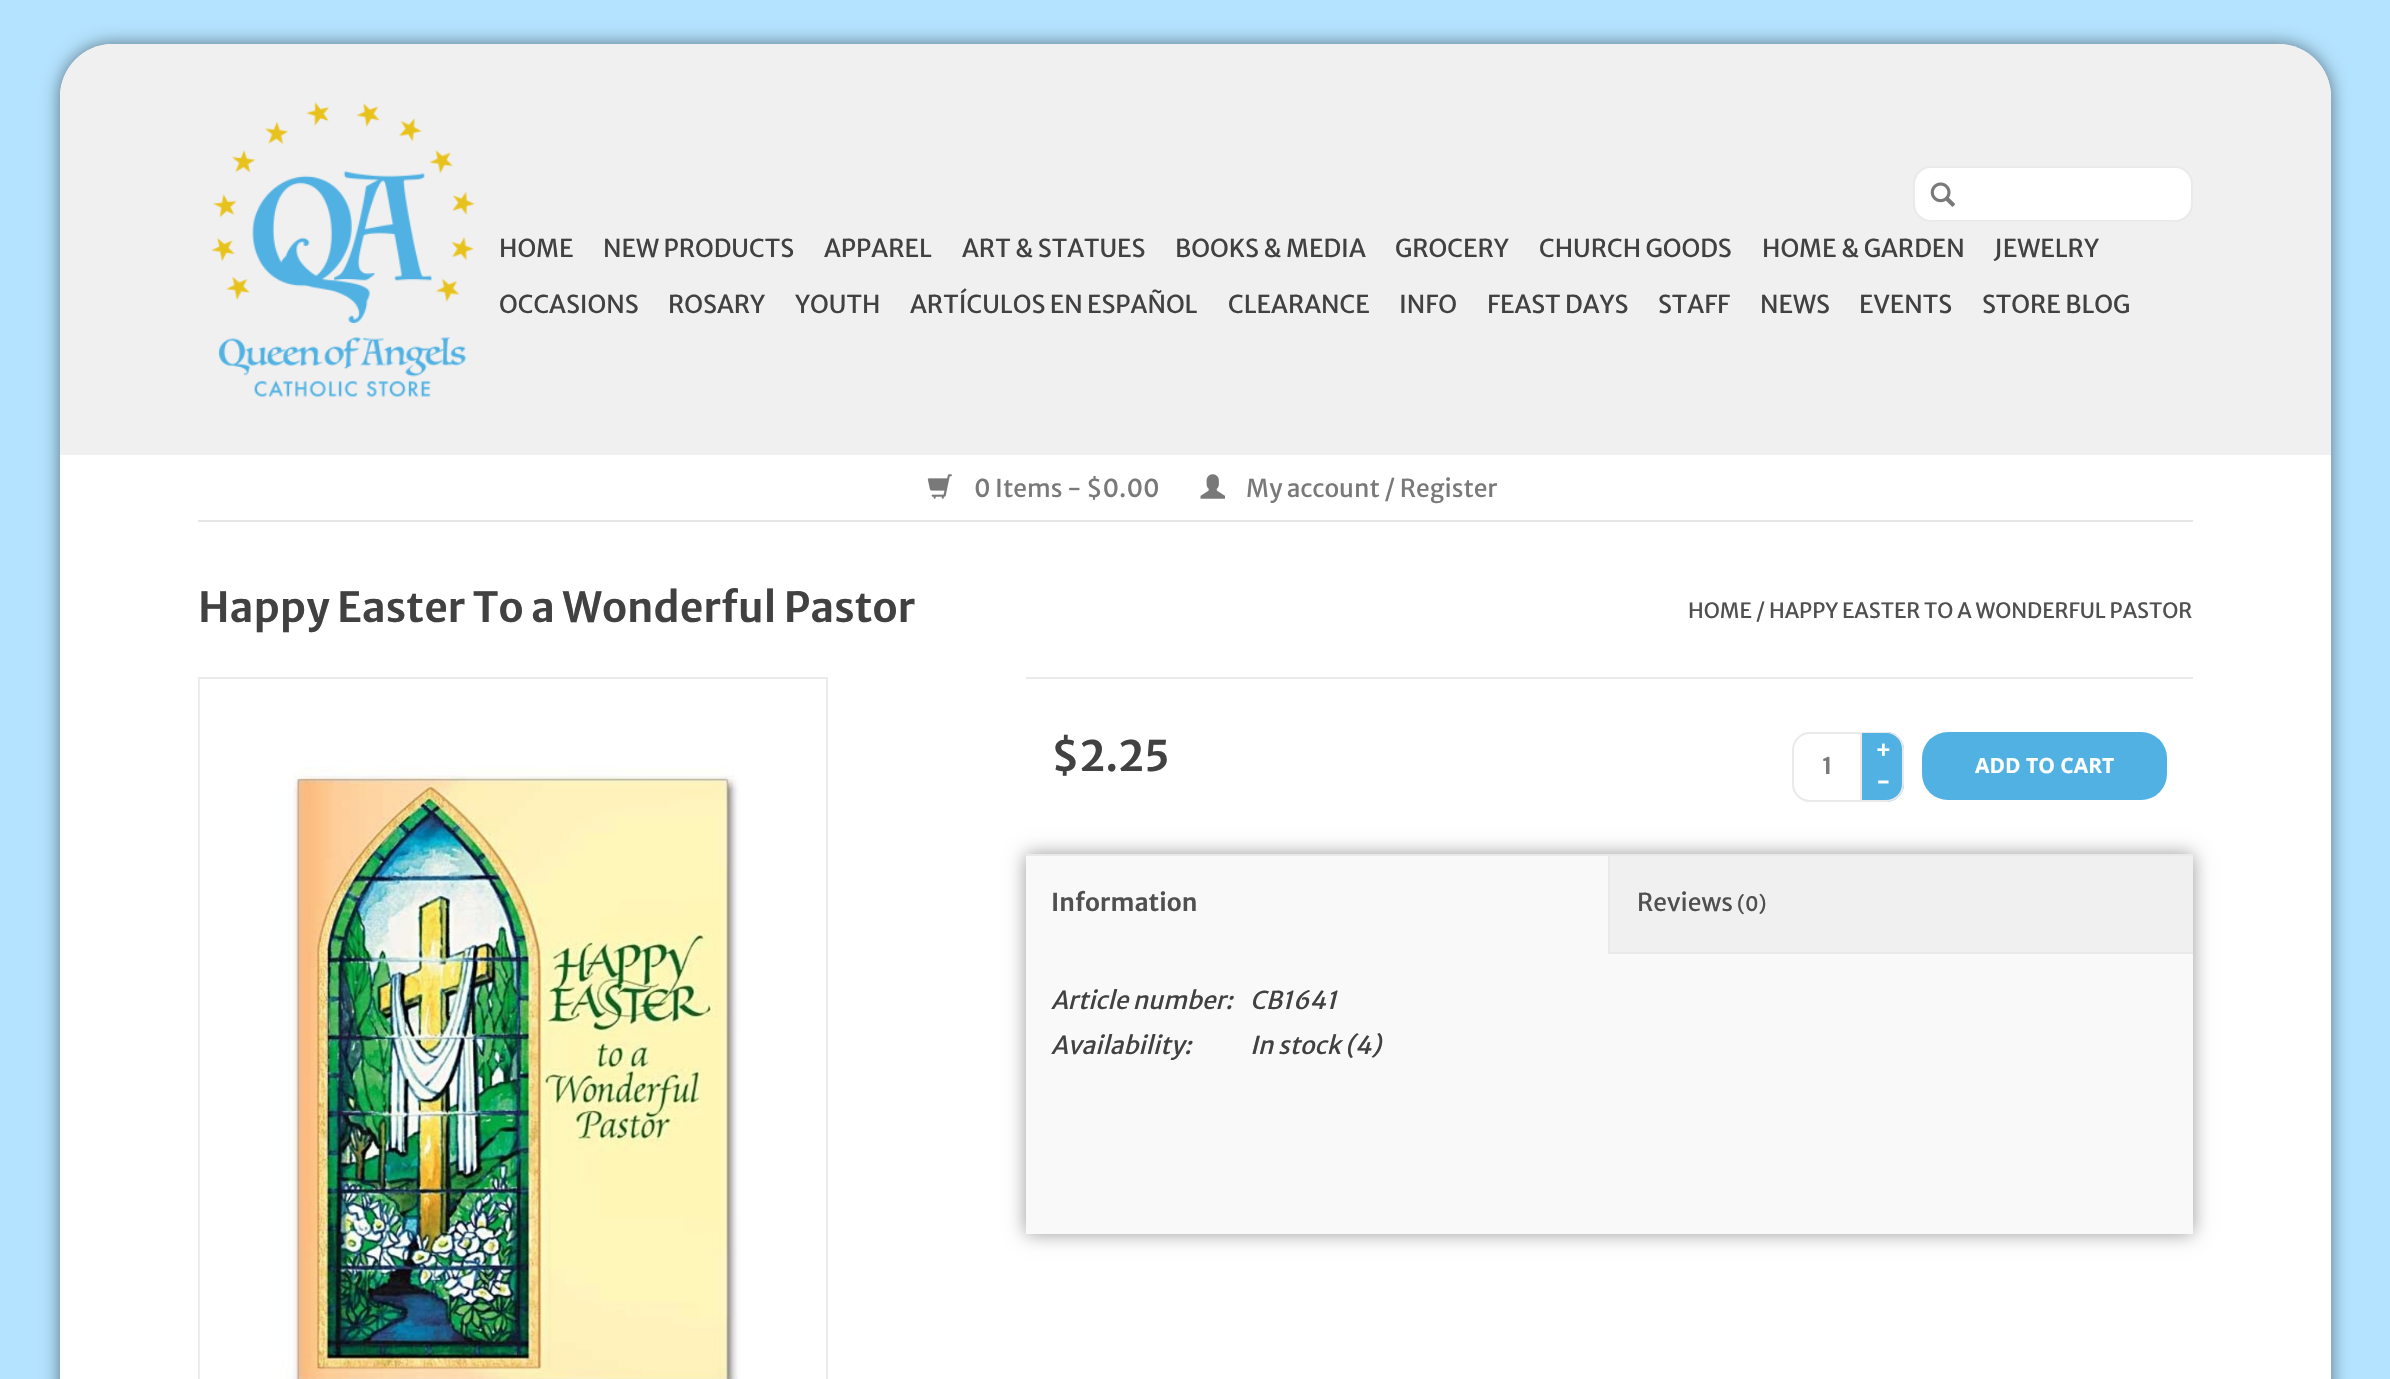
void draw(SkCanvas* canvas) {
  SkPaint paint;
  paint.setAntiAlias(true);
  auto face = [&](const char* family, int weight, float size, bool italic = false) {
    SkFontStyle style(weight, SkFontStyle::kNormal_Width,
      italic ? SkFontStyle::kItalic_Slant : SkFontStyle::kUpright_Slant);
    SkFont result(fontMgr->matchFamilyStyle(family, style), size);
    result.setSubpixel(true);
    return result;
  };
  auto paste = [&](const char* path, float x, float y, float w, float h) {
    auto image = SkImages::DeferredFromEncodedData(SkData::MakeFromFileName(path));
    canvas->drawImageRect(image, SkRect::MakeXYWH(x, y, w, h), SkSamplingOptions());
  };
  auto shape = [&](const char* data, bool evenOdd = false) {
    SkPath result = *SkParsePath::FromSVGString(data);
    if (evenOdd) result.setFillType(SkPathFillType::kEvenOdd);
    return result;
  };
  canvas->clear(0xffb4e3ff);
  paint.setColor(0x80000000);
  paint.setMaskFilter(SkMaskFilter::MakeBlur(kNormal_SkBlurStyle, 9));
  canvas->drawRoundRect(SkRect::MakeXYWH(60, 44, 2271, 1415), 53, 53, paint);
  paint.setMaskFilter(nullptr);
  paint.setColor(0xffffffff);
  canvas->drawRoundRect(SkRect::MakeXYWH(60, 44, 2271, 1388), 53, 53, paint);
  paint.setColor(0xfff0f0f0);
  canvas->drawPath(shape("M113 44H2278C2307.5 44 2331 67.5 2331 97V539H60V97C60 67.5 83.5 44 113 44Z"), paint);
  paste("img/1.png", 211, 102, 264, 295);
  paint.setColor(0xffffffff);
  canvas->drawRoundRect(SkRect::MakeXYWH(1914, 167, 278, 54), 17, 17, paint);
  paint.setStroke(true);
  paint.setStrokeWidth(2);
  paint.setColor(0xffeaeaea);
  canvas->drawRoundRect(SkRect::MakeXYWH(1914, 167, 278, 54), 17, 17, paint);
  paste("img/2.png", 1930, 182, 26, 25);
  paint.setStroke(false);
  paint.setColor(0xffffffff);
  canvas->drawRect(SkRect::MakeXYWH(60, 455, 2271, 84), paint);
  paint.setColor(0xffe6e6e6);
  canvas->drawRect(SkRect::MakeXYWH(198, 520, 1995, 2), paint);
  paste("img/3.png", 927, 474, 25, 25);
  paste("img/4.png", 1200, 474, 25, 25);
  paint.setStroke(true);
  paint.setColor(0xffeaeaea);
  canvas->drawRect(SkRect::MakeXYWH(199, 678, 628, 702), paint);
  paste("img/5.png", 199, 679, 627, 700);
  paint.setStroke(false);
  canvas->drawRect(SkRect::MakeXYWH(1026, 677, 1167, 2), paint);
  paint.setStroke(true);
  canvas->drawPath(shape("M1810 733H1861V801H1810C1800.5 801 1793 793.5 1793 784V750C1793 740.5 1800.5 733 1810 733Z"), paint);
  paint.setStroke(false);
  paint.setColor(0xff50b1e2);
  canvas->drawPath(shape("M1862 732H1886C1896 732 1904 740 1904 750V784C1904 794 1896 802 1886 802H1862Z"), paint);
  paint.setColor(0xffeaeaea);
  canvas->drawPath(shape("M1862 732H1886C1896 732 1904 739 1904 749V784C1904 794 1896 802 1886 802H1862ZM1862 733H1886C1895 733 1902 740 1902 749V784C1902 793 1895 800 1886 800H1862Z", true), paint);
  paint.setColor(0xff50b1e2);
  canvas->drawRoundRect(SkRect::MakeXYWH(1922, 732, 245, 68), 26, 26, paint);
  paint.setColor(0x66000000);
  paint.setMaskFilter(SkMaskFilter::MakeBlur(kNormal_SkBlurStyle, 9));
  canvas->drawRect(SkRect::MakeXYWH(1026, 854, 1167, 380), paint);
  paint.setMaskFilter(nullptr);
  {
    const struct { float x, y, w, h; SkColor color; } items[] = {
      {1026, 854, 1167, 2, 0xffeaeaea},
      {1026, 856, 582, 98, 0xfff9f9f9},
      {1610, 856, 583, 96, 0xfff0f0f0},
      {1608, 952, 585, 2, 0xffeaeaea},
      {1608, 856, 2, 98, 0xffeaeaea},
      {1026, 954, 1167, 280, 0xfff9f9f9},
    };
    for (auto [x, y, w, h, color] : items) {
      paint.setColor(color);
      canvas->drawRect(SkRect::MakeXYWH(x, y, w, h), paint);
    }
  }
  auto f0 = face("Merriweather Sans", 400, 24.5f);
  paint.setColor(0xff414141);
  {
    const struct { const char* s; float x, y; } items[] = {
      {"HOME", 499, 257},
      {"NEW PRODUCTS", 603, 257},
      {"APPAREL", 824, 257},
      {"ART & STATUES", 962, 257},
      {"BOOKS & MEDIA", 1175, 257},
      {"GROCERY", 1395, 257},
      {"CHURCH GOODS", 1539, 257},
      {"HOME & GARDEN", 1762, 257},
      {"JEWELRY", 1994, 257},
      {"OCCASIONS", 499, 313},
      {"ROSARY", 668, 313},
      {"YOUTH", 795, 313},
      {"ARTÍCULOS EN ESPAÑOL", 910, 313},
      {"CLEARANCE", 1228, 313},
      {"INFO", 1399, 313},
      {"FEAST DAYS", 1487, 313},
      {"STAFF", 1658, 313},
      {"NEWS", 1760, 313},
      {"EVENTS", 1859, 313},
      {"STORE BLOG", 1982, 313},
    };
    for (auto [s, x, y] : items) {
      canvas->drawString(s, x, y, f0, paint);
    }
  }
  paint.setColor(0xff797979);
  canvas->drawString("0 Items - $0.00", 974, 497, f0, paint);
  canvas->drawString("My account / Register", 1246, 497, f0, paint);
  auto f1 = face("Merriweather Sans", 600, 41.3f);
  paint.setColor(0xff414141);
  canvas->drawString("Happy Easter To a Wonderful Pastor", 198, 622, f1, paint);
  auto f2 = face("Merriweather Sans", 400, 21);
  paint.setColor(0xff505050);
  canvas->drawString("HOME / HAPPY EASTER TO A WONDERFUL PASTOR", 1688, 618, f2, paint);
  auto f3 = face("Merriweather Sans", 600, 42);
  paint.setColor(0xff414141);
  canvas->drawString("$2.25", 1051, 771, f3, paint);
  auto f4 = face("Merriweather Sans", 600, 23);
  paint.setColor(0xff797979);
  canvas->drawString("1", 1822, 774, f4, paint);
  auto f5 = face("Merriweather Sans", 600, 24.5f);
  paint.setColor(0xffffffff);
  canvas->drawString("+", 1875, 759, f5, paint);
  canvas->drawString("-", 1876, 790, f5, paint);
  auto f6 = face("Open Sans", 700, 21);
  canvas->drawString("ADD TO CART", 1975, 773, f6, paint);
  paint.setColor(0xff505050);
  canvas->drawString("Information", 1051, 911, f5, paint);
  canvas->drawString("Reviews", 1637, 911, f0, paint);
  auto f7 = face("Merriweather Sans", 400, 20);
  canvas->drawString("(0)", 1737, 911, f7, paint);
  auto f8 = face("Merriweather Sans", 400, 24.5f, true);
  paint.setColor(0xff414141);
  {
    const struct { const char* s; float x, y; } items[] = {
      {"Article number:", 1051, 1009},
      {"CB1641", 1250, 1009},
      {"Availability:", 1051, 1054},
      {"In stock (4)", 1250, 1054},
    };
    for (auto [s, x, y] : items) {
      canvas->drawString(s, x, y, f8, paint);
    }
  }
}
